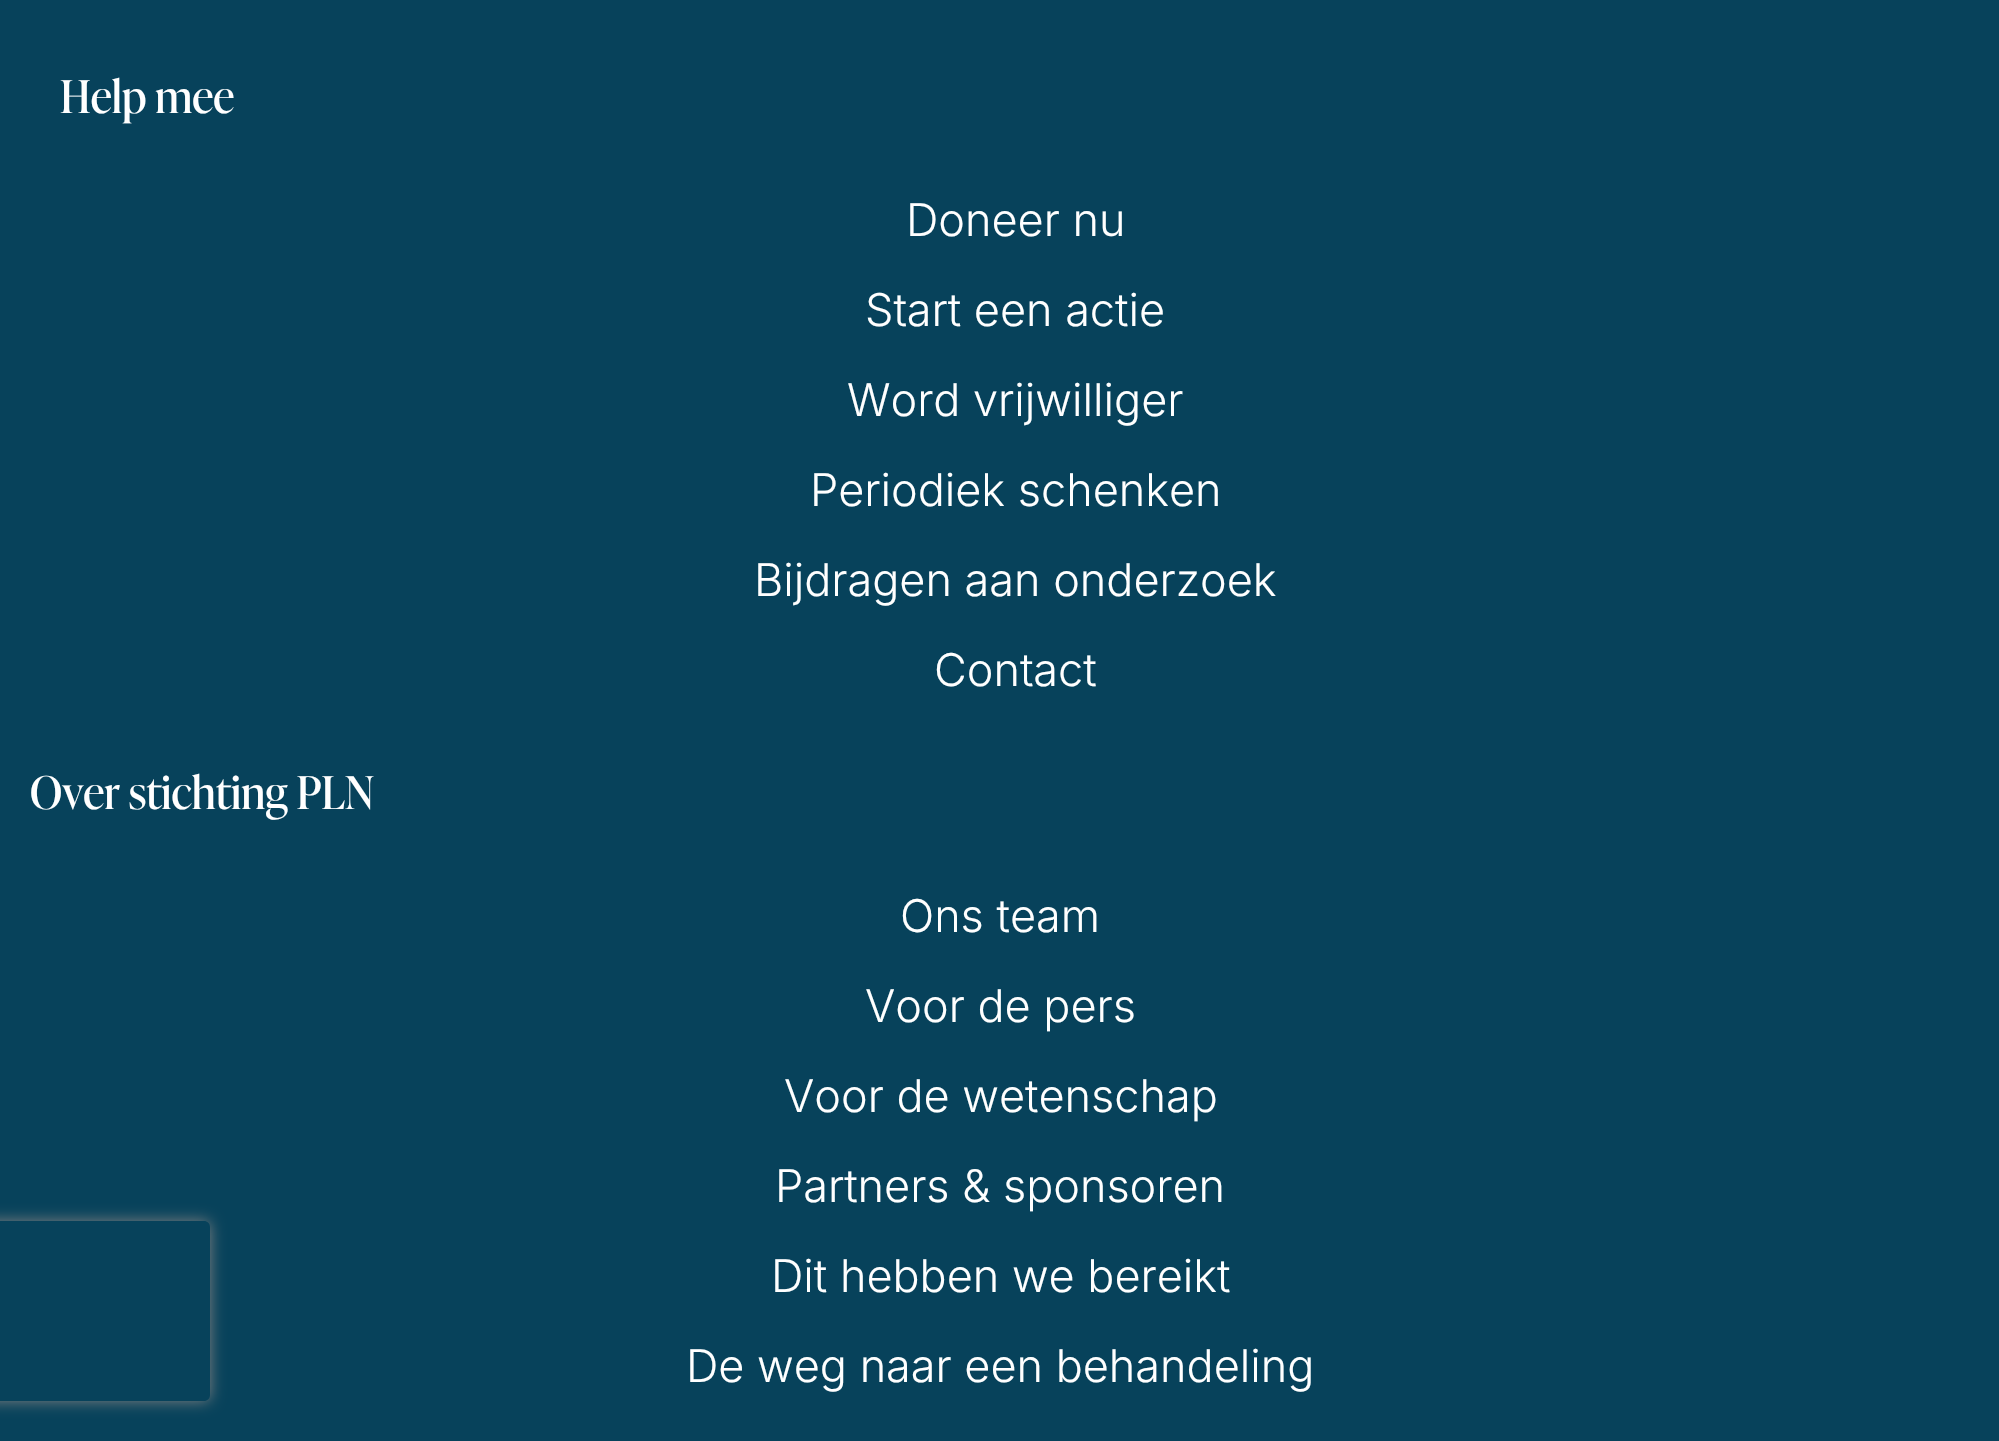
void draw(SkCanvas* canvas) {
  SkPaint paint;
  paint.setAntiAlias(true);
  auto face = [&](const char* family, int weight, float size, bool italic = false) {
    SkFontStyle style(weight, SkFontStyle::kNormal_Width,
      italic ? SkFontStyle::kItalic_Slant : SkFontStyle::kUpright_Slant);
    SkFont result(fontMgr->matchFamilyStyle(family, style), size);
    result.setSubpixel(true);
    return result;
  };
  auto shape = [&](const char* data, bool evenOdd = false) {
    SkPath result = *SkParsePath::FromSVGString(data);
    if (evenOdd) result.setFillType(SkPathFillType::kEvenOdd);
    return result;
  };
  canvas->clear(0xff07425b);
  canvas->save();
  canvas->clipPath(shape("M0 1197H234V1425H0ZM-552 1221H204C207.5 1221 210 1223.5 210 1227V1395C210 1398.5 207.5 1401 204 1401H-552C-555.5 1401-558 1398.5-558 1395V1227C-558 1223.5-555.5 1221-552 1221Z", true), true);
  paint.setColor(0xff808080);
  paint.setMaskFilter(SkMaskFilter::MakeBlur(kNormal_SkBlurStyle, 7.5f));
  canvas->drawRoundRect(SkRect::MakeXYWH(-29, 1221, 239, 180), 6, 6, paint);
  paint.setMaskFilter(nullptr);
  canvas->restore();
  auto f0 = face("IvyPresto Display", 400, 45);
  paint.setColor(0xffffffff);
  canvas->drawString("Help mee", 60, 113, f0, paint);
  auto f1 = face("Inter", 300, 45);
  {
    const struct { const char* s; float x, y; } items[] = {
      {"Doneer nu", 906, 236},
      {"Start een actie", 865, 326},
      {"Word vrijwilliger", 847, 416},
      {"Periodiek schenken", 810, 506},
      {"Bijdragen aan onderzoek", 754, 596},
      {"Contact", 934, 686},
    };
    for (auto [s, x, y] : items) {
      canvas->drawString(s, x, y, f1, paint);
    }
  }
  canvas->drawString("Over stichting PLN", 30, 809, f0, paint);
  {
    const struct { const char* s; float x, y; } items[] = {
      {"Ons team", 900, 932},
      {"Voor de pers", 865, 1022},
      {"Voor de wetenschap", 784, 1112},
      {"Partners & sponsoren", 775, 1202},
      {"Dit hebben we bereikt", 771, 1292},
      {"De weg naar een behandeling", 686, 1382},
    };
    for (auto [s, x, y] : items) {
      canvas->drawString(s, x, y, f1, paint);
    }
  }
}
